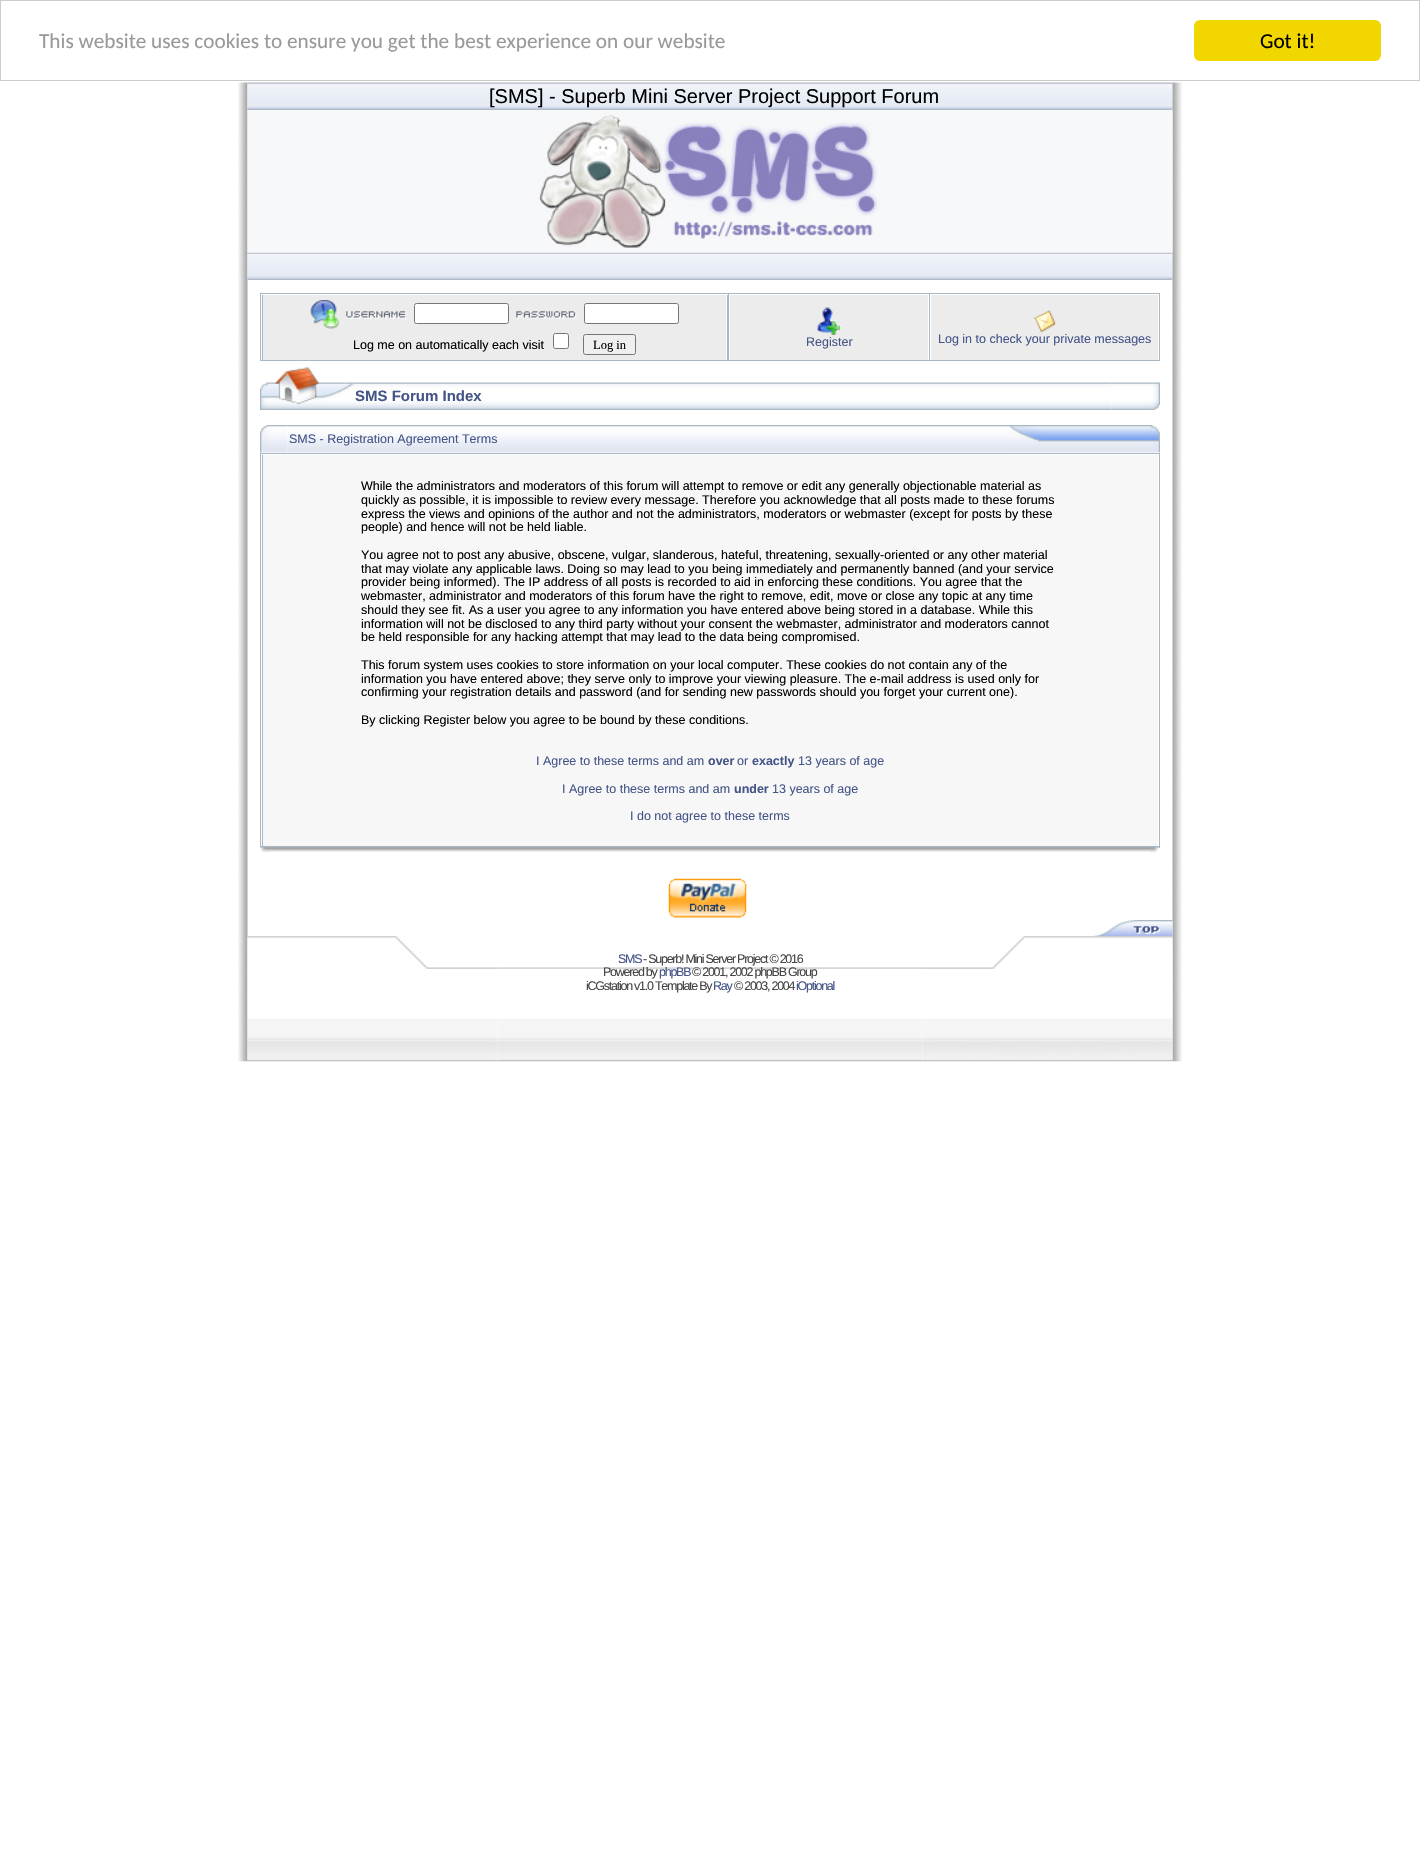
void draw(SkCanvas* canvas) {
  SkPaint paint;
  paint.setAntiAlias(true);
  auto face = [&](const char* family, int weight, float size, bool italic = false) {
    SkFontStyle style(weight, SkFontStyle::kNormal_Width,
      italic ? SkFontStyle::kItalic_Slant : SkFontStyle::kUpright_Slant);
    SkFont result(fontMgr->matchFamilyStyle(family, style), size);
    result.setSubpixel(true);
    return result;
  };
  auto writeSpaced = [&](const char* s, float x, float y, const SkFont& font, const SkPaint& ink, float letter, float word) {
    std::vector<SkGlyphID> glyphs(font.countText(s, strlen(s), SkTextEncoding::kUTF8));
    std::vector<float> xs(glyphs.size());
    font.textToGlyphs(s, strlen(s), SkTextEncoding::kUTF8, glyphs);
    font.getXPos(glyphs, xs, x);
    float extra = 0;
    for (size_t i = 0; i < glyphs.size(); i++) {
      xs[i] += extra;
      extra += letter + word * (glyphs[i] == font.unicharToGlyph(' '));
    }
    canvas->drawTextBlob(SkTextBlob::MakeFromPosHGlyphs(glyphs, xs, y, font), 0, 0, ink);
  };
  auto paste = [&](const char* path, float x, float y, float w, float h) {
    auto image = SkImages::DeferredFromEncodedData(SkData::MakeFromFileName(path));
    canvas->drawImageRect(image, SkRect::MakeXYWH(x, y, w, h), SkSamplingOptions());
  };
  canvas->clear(0xffffffff);
  paint.setStroke(true);
  paint.setStrokeWidth(1);
  paint.setColor(0xffcccccc);
  canvas->drawRect(SkRect::MakeXYWH(0.5f, 0.5f, 1419, 80), paint);
  paint.setStroke(false);
  paint.setColor(0xfff1d600);
  canvas->drawRoundRect(SkRect::MakeXYWH(1194, 20, 187, 41), 6, 6, paint);
  paste("img/1.png", 238, 82, 10, 980);
  paste("img/2.png", 247, 82, 926, 28);
  paste("img/4.png", 247, 252, 926, 28);
  paste("img/24.png", 1172, 82, 10, 980);
  paste("img/3.png", 247, 110, 926, 143);
  {
    const struct { float x, y, w, h; SkColor color; } items[] = {
      {260, 293, 900, 68, 0xffa9b8c2},
      {263, 295, 463, 65, 0xffececec},
      {261, 294, 467, 1, 0xffffffff},
      {726, 294, 1, 66, 0xffffffff},
      {261, 294, 1, 66, 0xffffffff},
    };
    for (auto [x, y, w, h, color] : items) {
      paint.setColor(color);
      canvas->drawRect(SkRect::MakeXYWH(x, y, w, h), paint);
    }
  }
  paste("img/5.png", 310, 300, 29, 29);
  paste("img/6.png", 346, 311, 61, 8);
  canvas->drawRoundRect(SkRect::MakeXYWH(414.5f, 303.5f, 94, 20), 2, 2, paint);
  paint.setStroke(true);
  paint.setColor(0xff767676);
  canvas->drawRoundRect(SkRect::MakeXYWH(414.5f, 303.5f, 94, 20), 2, 2, paint);
  paste("img/7.png", 516, 311, 61, 8);
  paint.setStroke(false);
  paint.setColor(0xffffffff);
  canvas->drawRoundRect(SkRect::MakeXYWH(584.5f, 303.5f, 94, 20), 2, 2, paint);
  paint.setStroke(true);
  paint.setColor(0xff767676);
  canvas->drawRoundRect(SkRect::MakeXYWH(584.5f, 303.5f, 94, 20), 2, 2, paint);
  paint.setStroke(false);
  paint.setColor(0xffffffff);
  canvas->drawRoundRect(SkRect::MakeXYWH(553.5f, 333.5f, 15, 15), 2, 2, paint);
  paint.setStroke(true);
  paint.setColor(0xff767676);
  canvas->drawRoundRect(SkRect::MakeXYWH(553.5f, 333.5f, 15, 15), 2, 2, paint);
  paint.setStroke(false);
  paint.setColor(0xffefefef);
  canvas->drawRoundRect(SkRect::MakeXYWH(583.5f, 334.5f, 52, 20), 2, 2, paint);
  paint.setStroke(true);
  paint.setColor(0xff767676);
  canvas->drawRoundRect(SkRect::MakeXYWH(583.5f, 334.5f, 52, 20), 2, 2, paint);
  paint.setStroke(false);
  {
    const struct { float x, y, w, h; SkColor color; } items[] = {
      {730, 295, 198, 65, 0xffececec},
      {729, 294, 200, 1, 0xffffffff},
      {928, 294, 1, 66, 0xffffffff},
      {729, 294, 1, 66, 0xffffffff},
    };
    for (auto [x, y, w, h, color] : items) {
      paint.setColor(color);
      canvas->drawRect(SkRect::MakeXYWH(x, y, w, h), paint);
    }
  }
  paste("img/8.png", 817, 307, 25, 28);
  {
    const struct { float x, y, w, h; SkColor color; } items[] = {
      {931, 295, 227, 65, 0xffececec},
      {930, 294, 229, 1, 0xffffffff},
      {1158, 294, 1, 66, 0xffffffff},
      {930, 294, 1, 66, 0xffffffff},
    };
    for (auto [x, y, w, h, color] : items) {
      paint.setColor(color);
      canvas->drawRect(SkRect::MakeXYWH(x, y, w, h), paint);
    }
  }
  paste("img/9.png", 1033, 310, 23, 23);
  paste("img/10.png", 260, 367, 95, 43);
  paste("img/11.png", 355, 382, 757, 28);
  paste("img/12.png", 1111, 382, 49, 28);
  paste("img/13.png", 260, 425, 28, 28);
  paste("img/14.png", 287, 425, 718, 28);
  paste("img/15.png", 1005, 425, 155, 28);
  {
    const struct { float x, y, w, h; SkColor color; } items[] = {
      {260, 453, 900, 395, 0xffa9b8c2},
      {263, 455, 895, 391, 0xfff7f7f7},
      {261, 454, 898, 1, 0xffffffff},
      {1158, 454, 1, 392, 0xffffffff},
      {261, 454, 1, 392, 0xffffffff},
    };
    for (auto [x, y, w, h, color] : items) {
      paint.setColor(color);
      canvas->drawRect(SkRect::MakeXYWH(x, y, w, h), paint);
    }
  }
  paste("img/16.png", 260, 847, 10, 6);
  paste("img/17.png", 270, 847, 880, 5);
  paste("img/18.png", 1150, 847, 9, 6);
  paste("img/19.png", 668, 878, 79, 40);
  paste("img/20.png", 1093, 920, 80, 17);
  paste("img/22.png", 497, 967, 426, 95);
  paste("img/21.png", 247, 936, 251, 126);
  paste("img/23.png", 922, 936, 251, 126);
  auto f0 = face("Carlito", 400, 21.25f);
  paint.setColor(0xff999999);
  canvas->drawString("This website uses cookies to ensure you get the best experience on our website", 39, 48, f0, paint);
  paint.setColor(0xff000000);
  canvas->drawString("Got it!", 1260, 48, f0, paint);
  auto f1 = face("Liberation Sans", 400, 20);
  canvas->drawString("[SMS] - Superb Mini Server Project Support Forum", 489, 103, f1, paint);
  auto f2 = face("Liberation Sans", 400, 12.5f);
  canvas->drawString("Log me on automatically each visit", 353, 349, f2, paint);
  auto f3 = face("Liberation Serif", 400, 12.5f);
  canvas->drawString("Log in", 593, 349, f3, paint);
  paint.setColor(0xff445588);
  canvas->drawString("Register", 806, 346, f2, paint);
  canvas->drawString("Log in to check your private messages", 938, 343, f2, paint);
  auto f4 = face("Liberation Sans", 700, 15);
  canvas->drawString("SMS Forum Index", 355, 401, f4, paint);
  canvas->drawString("SMS - Registration Agreement Terms", 289, 443, f2, paint);
  paint.setColor(0xff000000);
  {
    const struct { const char* s; float x, y; } items[] = {
      {"While the administrators and moderators of this forum will attempt to remove or edit any generally objectionable material as", 361, 490},
      {"quickly as possible, it is impossible to review every message. Therefore you acknowledge that all posts made to these forums", 361, 504},
      {"express the views and opinions of the author and not the administrators, moderators or webmaster (except for posts by these", 361, 518},
      {"people) and hence will not be held liable.", 361, 531},
      {"You agree not to post any abusive, obscene, vulgar, slanderous, hateful, threatening, sexually-oriented or any other material", 361, 559},
      {"that may violate any applicable laws. Doing so may lead to you being immediately and permanently banned (and your service", 361, 573},
      {"provider being informed). The IP address of all posts is recorded to aid in enforcing these conditions. You agree that the", 361, 586},
      {"webmaster, administrator and moderators of this forum have the right to remove, edit, move or close any topic at any time", 361, 600},
      {"should they see fit. As a user you agree to any information you have entered above being stored in a database. While this", 361, 614},
      {"information will not be disclosed to any third party without your consent the webmaster, administrator and moderators cannot", 361, 628},
      {"be held responsible for any hacking attempt that may lead to the data being compromised.", 361, 641},
      {"This forum system uses cookies to store information on your local computer. These cookies do not contain any of the", 361, 669},
      {"information you have entered above; they serve only to improve your viewing pleasure. The e-mail address is used only for", 361, 683},
      {"confirming your registration details and password (and for sending new passwords should you forget your current one).", 361, 696},
      {"By clicking Register below you agree to be bound by these conditions.", 361, 724},
    };
    for (auto [s, x, y] : items) {
      canvas->drawString(s, x, y, f2, paint);
    }
  }
  paint.setColor(0xff445588);
  canvas->drawString("I Agree to these terms and am", 536, 765, f2, paint);
  auto f5 = face("Liberation Sans", 700, 12.5f);
  canvas->drawString("over", 708, 765, f5, paint);
  canvas->drawString("or", 737, 765, f2, paint);
  canvas->drawString("exactly", 752, 765, f5, paint);
  canvas->drawString("13 years of age", 798, 765, f2, paint);
  canvas->drawString("I Agree to these terms and am", 562, 793, f2, paint);
  canvas->drawString("under", 734, 793, f5, paint);
  canvas->drawString("13 years of age", 772, 793, f2, paint);
  canvas->drawString("I do not agree to these terms", 630, 820, f2, paint);
  writeSpaced("SMS", 618, 963, f2, paint, -1.25f, 0);
  paint.setColor(0xff444444);
  writeSpaced("- Superb! Mini Server Project © 2016", 643, 963, f2, paint, -1.25f, 0);
  writeSpaced("Powered by", 603, 976, f2, paint, -1.25f, 0);
  paint.setColor(0xff445588);
  writeSpaced("phpBB", 659, 976, f2, paint, -1.25f, 0);
  paint.setColor(0xff444444);
  writeSpaced("© 2001, 2002 phpBB Group", 692, 976, f2, paint, -1.25f, 0);
  writeSpaced("iCGstation v1.0 Template By", 586, 990, f2, paint, -1.25f, 0);
  paint.setColor(0xff445588);
  writeSpaced("Ray", 713, 990, f2, paint, -1.25f, 0);
  paint.setColor(0xff444444);
  writeSpaced("© 2003, 2004", 734, 990, f2, paint, -1.25f, 0);
  paint.setColor(0xff445588);
  writeSpaced("iOptional", 796, 990, f2, paint, -1.25f, 0);
}
